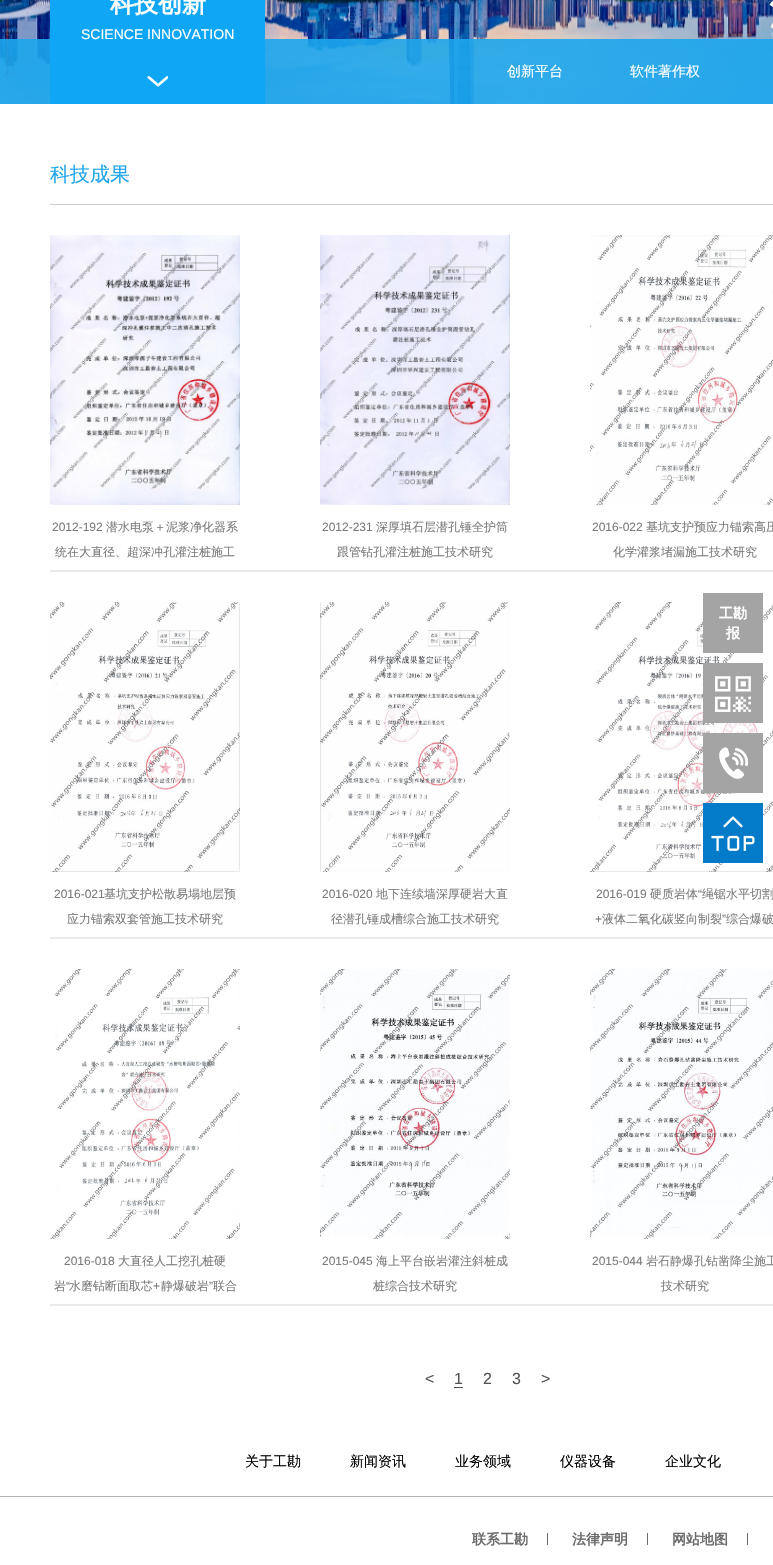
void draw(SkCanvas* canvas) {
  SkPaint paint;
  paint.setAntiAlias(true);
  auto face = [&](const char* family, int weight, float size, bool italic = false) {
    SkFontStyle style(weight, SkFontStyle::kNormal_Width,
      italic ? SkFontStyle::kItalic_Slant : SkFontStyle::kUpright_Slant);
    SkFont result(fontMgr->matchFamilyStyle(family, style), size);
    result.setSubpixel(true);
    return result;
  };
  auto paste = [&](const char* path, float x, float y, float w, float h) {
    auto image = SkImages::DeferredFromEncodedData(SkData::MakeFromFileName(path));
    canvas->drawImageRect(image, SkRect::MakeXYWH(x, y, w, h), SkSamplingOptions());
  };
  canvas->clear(0xffffffff);
  paste("img/1.png", 0, 0, 773, 104);
  paint.setColor(0xe61ca5ec);
  canvas->drawRect(SkRect::MakeXYWH(0, 39, 773, 65), paint);
  paint.setColor(0xff0ea6f5);
  canvas->drawRect(SkRect::MakeXYWH(50, 0, 215, 104), paint);
  paste("img/2.png", 147, 76, 21, 11);
  paint.setColor(0xffcccccc);
  canvas->drawRect(SkRect::MakeXYWH(50, 204, 723, 1), paint);
  paint.setColor(0xffeaeaeb);
  canvas->drawRect(SkRect::MakeXYWH(50, 570, 723, 2), paint);
  paste("img/3.png", 50, 235, 190, 270);
  paste("img/4.png", 320, 235, 190, 270);
  paste("img/5.png", 590, 235, 183, 270);
  canvas->drawRect(SkRect::MakeXYWH(50, 937, 723, 2), paint);
  paste("img/6.png", 50, 602, 190, 270);
  paste("img/7.png", 320, 602, 190, 270);
  paste("img/8.png", 590, 602, 183, 270);
  canvas->drawRect(SkRect::MakeXYWH(50, 1304, 723, 2), paint);
  paste("img/9.png", 50, 969, 190, 270);
  paste("img/10.png", 320, 969, 190, 270);
  paste("img/11.png", 590, 969, 183, 270);
  {
    const struct { float x, y, w, h; SkColor color; } items[] = {
      {454, 1387, 9, 1, 0xff535353},
      {703, 593, 60, 60, 0xffa4a4a4},
      {703, 663, 60, 60, 0xffa4a4a4},
    };
    for (auto [x, y, w, h, color] : items) {
      paint.setColor(color);
      canvas->drawRect(SkRect::MakeXYWH(x, y, w, h), paint);
    }
  }
  paste("img/12.png", 715, 676, 36, 36);
  canvas->drawRect(SkRect::MakeXYWH(703, 733, 60, 60), paint);
  paste("img/13.png", 719, 747, 29, 32);
  paint.setColor(0xff037bc9);
  canvas->drawRect(SkRect::MakeXYWH(703, 803, 60, 60), paint);
  paste("img/14.png", 711, 816, 44, 35);
  {
    const struct { float x, y, w, h; SkColor color; } items[] = {
      {0, 1496, 773, 1, 0xffb3b3b3},
      {547, 1533, 1, 12, 0xff6b6b6b},
      {647, 1533, 1, 12, 0xff6b6b6b},
      {747, 1533, 1, 12, 0xff6b6b6b},
    };
    for (auto [x, y, w, h, color] : items) {
      paint.setColor(color);
      canvas->drawRect(SkRect::MakeXYWH(x, y, w, h), paint);
    }
  }
  auto f0 = face("WenQuanYi Zen Hei", 700, 24);
  paint.setColor(0xffffffff);
  canvas->drawString("科技创新", 110, 12, f0, paint);
  auto f1 = face("Liberation Sans", 400, 14);
  canvas->drawString("SCIENCE INNOVATION", 81, 39, f1, paint);
  auto f2 = face("WenQuanYi Zen Hei", 500, 14);
  canvas->drawString("创新平台", 507, 76, f2, paint);
  canvas->drawString("软件著作权", 630, 76, f2, paint);
  auto f3 = face("WenQuanYi Zen Hei", 500, 20);
  paint.setColor(0xff1ca5ec);
  canvas->drawString("科技成果", 50, 181, f3, paint);
  auto f4 = face("Liberation Sans", 400, 12);
  paint.setColor(0xff7b7b7b);
  canvas->drawString("2012-192", 52, 531, f4, paint);
  auto f5 = face("WenQuanYi Zen Hei", 500, 12);
  canvas->drawString("潜水电泵＋泥浆净化器系", 106, 531, f5, paint);
  canvas->drawString("统在大直径、超深冲孔灌注桩施工", 55, 556, f5, paint);
  canvas->drawString("2012-231", 322, 531, f4, paint);
  canvas->drawString("深厚填石层潜孔锤全护筒", 376, 531, f5, paint);
  canvas->drawString("跟管钻孔灌注桩施工技术研究", 337, 556, f5, paint);
  canvas->drawString("2016-022", 592, 531, f4, paint);
  canvas->drawString("基坑支护预应力锚索高压", 646, 531, f5, paint);
  canvas->drawString("化学灌浆堵漏施工技术研究", 613, 556, f5, paint);
  canvas->drawString("2016-021", 54, 898, f4, paint);
  canvas->drawString("基坑支护松散易塌地层预", 104, 898, f5, paint);
  canvas->drawString("应力锚索双套管施工技术研究", 67, 923, f5, paint);
  canvas->drawString("2016-020", 322, 898, f4, paint);
  canvas->drawString("地下连续墙深厚硬岩大直", 376, 898, f5, paint);
  canvas->drawString("径潜孔锤成槽综合施工技术研究", 331, 923, f5, paint);
  canvas->drawString("2016-019", 596, 898, f4, paint);
  canvas->drawString("硬质岩体", 650, 898, f5, paint);
  canvas->drawString("“", 698, 898, f4, paint);
  canvas->drawString("绳锯水平切割", 702, 898, f5, paint);
  canvas->drawString("+", 595, 923, f4, paint);
  canvas->drawString("液体二氧化碳竖向制裂", 602, 923, f5, paint);
  canvas->drawString("”", 722, 923, f4, paint);
  canvas->drawString("综合爆破", 726, 923, f5, paint);
  canvas->drawString("2016-018", 64, 1265, f4, paint);
  canvas->drawString("大直径人工挖孔桩硬", 118, 1265, f5, paint);
  canvas->drawString("岩", 54, 1290, f5, paint);
  canvas->drawString("“", 66, 1290, f4, paint);
  canvas->drawString("水磨钻断面取芯", 69, 1290, f5, paint);
  canvas->drawString("+", 153, 1290, f4, paint);
  canvas->drawString("静爆破岩", 161, 1290, f5, paint);
  canvas->drawString("”", 209, 1290, f4, paint);
  canvas->drawString("联合", 213, 1290, f5, paint);
  canvas->drawString("2015-045", 322, 1265, f4, paint);
  canvas->drawString("海上平台嵌岩灌注斜桩成", 376, 1265, f5, paint);
  canvas->drawString("桩综合技术研究", 373, 1290, f5, paint);
  canvas->drawString("2015-044", 592, 1265, f4, paint);
  canvas->drawString("岩石静爆孔钻凿降尘施工", 646, 1265, f5, paint);
  canvas->drawString("技术研究", 661, 1290, f5, paint);
  auto f6 = face("Liberation Sans", 400, 16);
  paint.setColor(0xff535353);
  {
    const struct { const char* s; float x, y; } items[] = {
      {"<", 425, 1384},
      {"1", 454, 1384},
      {"2", 483, 1384},
      {"3", 512, 1384},
      {">", 541, 1384},
    };
    for (auto [s, x, y] : items) {
      canvas->drawString(s, x, y, f6, paint);
    }
  }
  auto f7 = face("WenQuanYi Zen Hei", 700, 14);
  paint.setColor(0xffffffff);
  canvas->drawString("工勘", 719, 618, f7, paint);
  canvas->drawString("报", 726, 638, f7, paint);
  paint.setColor(0xff000000);
  {
    const struct { const char* s; float x, y; } items[] = {
      {"关于工勘", 245, 1466},
      {"新闻资讯", 350, 1466},
      {"业务领域", 455, 1466},
      {"仪器设备", 560, 1466},
      {"企业文化", 665, 1466},
    };
    for (auto [s, x, y] : items) {
      canvas->drawString(s, x, y, f2, paint);
    }
  }
  paint.setColor(0xff6b6b6b);
  {
    const struct { const char* s; float x, y; } items[] = {
      {"联系工勘", 472, 1544},
      {"法律声明", 572, 1544},
      {"网站地图", 672, 1544},
    };
    for (auto [s, x, y] : items) {
      canvas->drawString(s, x, y, f7, paint);
    }
  }
}
